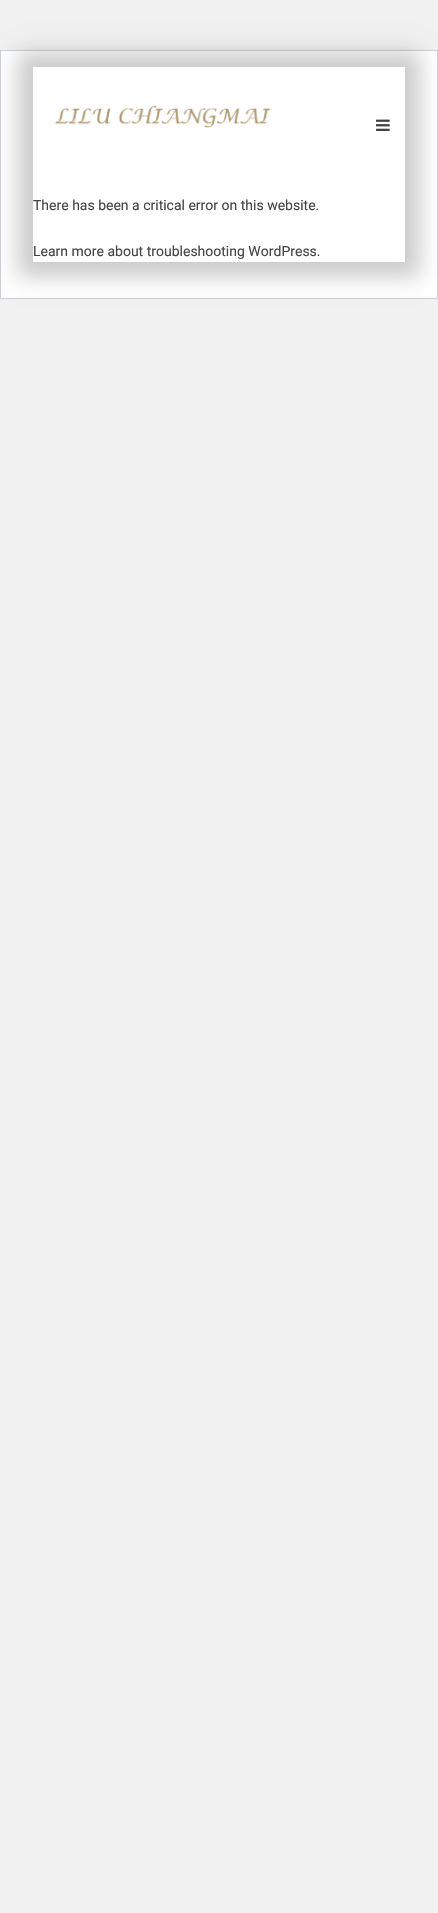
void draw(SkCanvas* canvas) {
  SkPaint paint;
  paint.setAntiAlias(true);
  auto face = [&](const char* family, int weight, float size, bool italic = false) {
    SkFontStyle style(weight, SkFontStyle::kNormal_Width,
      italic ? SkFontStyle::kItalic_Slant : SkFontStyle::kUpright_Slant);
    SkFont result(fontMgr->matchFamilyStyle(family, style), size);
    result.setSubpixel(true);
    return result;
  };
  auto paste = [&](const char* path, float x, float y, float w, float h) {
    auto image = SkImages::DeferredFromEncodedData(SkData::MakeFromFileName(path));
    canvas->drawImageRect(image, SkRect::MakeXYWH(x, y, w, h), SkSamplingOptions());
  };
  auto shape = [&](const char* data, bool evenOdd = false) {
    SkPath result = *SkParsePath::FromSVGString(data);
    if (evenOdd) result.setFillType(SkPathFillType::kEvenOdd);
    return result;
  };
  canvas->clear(0xfff1f1f1);
  paint.setColor(0xffffffff);
  canvas->drawRect(SkRect::MakeXYWH(0.5f, 50.5f, 437, 248), paint);
  paint.setStroke(true);
  paint.setStrokeWidth(1);
  paint.setColor(0xffccd0d4);
  canvas->drawRect(SkRect::MakeXYWH(0.5f, 50.5f, 437, 248), paint);
  canvas->save();
  canvas->clipPath(shape("M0 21H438V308H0ZM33 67H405V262H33Z", true), true);
  paint.setStroke(false);
  paint.setColor(0x33000000);
  paint.setMaskFilter(SkMaskFilter::MakeBlur(kNormal_SkBlurStyle, 10));
  canvas->drawRect(SkRect::MakeXYWH(18, 52, 402, 225), paint);
  paint.setMaskFilter(nullptr);
  canvas->restore();
  paste("img/1.png", 55, 105, 216, 23);
  paste("img/2.png", 376, 119, 14, 12);
  auto f0 = face("Roboto", 400, 14);
  paint.setColor(0xff444444);
  canvas->drawString("There has been a critical error on this website.", 33, 210, f0, paint);
  canvas->drawString("Learn more about troubleshooting WordPress.", 33, 256, f0, paint);
}
